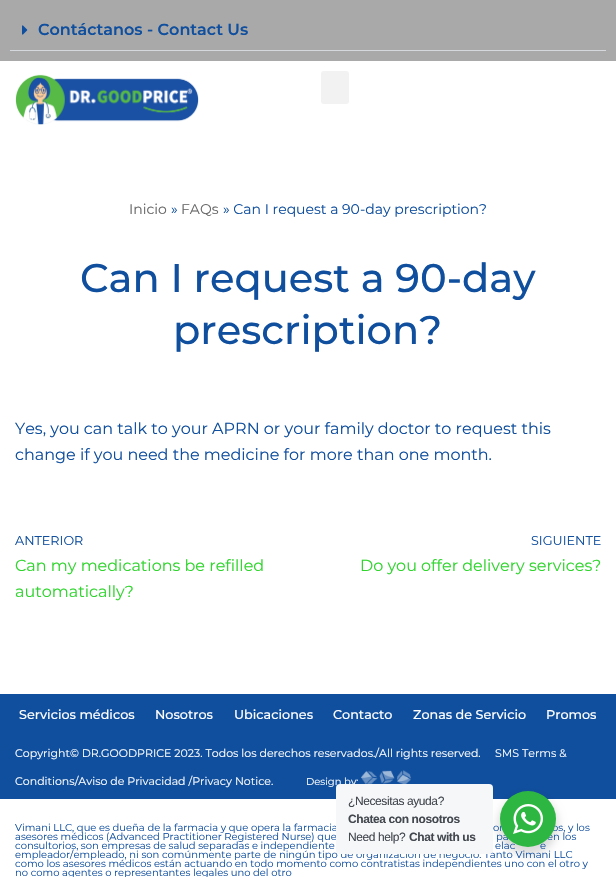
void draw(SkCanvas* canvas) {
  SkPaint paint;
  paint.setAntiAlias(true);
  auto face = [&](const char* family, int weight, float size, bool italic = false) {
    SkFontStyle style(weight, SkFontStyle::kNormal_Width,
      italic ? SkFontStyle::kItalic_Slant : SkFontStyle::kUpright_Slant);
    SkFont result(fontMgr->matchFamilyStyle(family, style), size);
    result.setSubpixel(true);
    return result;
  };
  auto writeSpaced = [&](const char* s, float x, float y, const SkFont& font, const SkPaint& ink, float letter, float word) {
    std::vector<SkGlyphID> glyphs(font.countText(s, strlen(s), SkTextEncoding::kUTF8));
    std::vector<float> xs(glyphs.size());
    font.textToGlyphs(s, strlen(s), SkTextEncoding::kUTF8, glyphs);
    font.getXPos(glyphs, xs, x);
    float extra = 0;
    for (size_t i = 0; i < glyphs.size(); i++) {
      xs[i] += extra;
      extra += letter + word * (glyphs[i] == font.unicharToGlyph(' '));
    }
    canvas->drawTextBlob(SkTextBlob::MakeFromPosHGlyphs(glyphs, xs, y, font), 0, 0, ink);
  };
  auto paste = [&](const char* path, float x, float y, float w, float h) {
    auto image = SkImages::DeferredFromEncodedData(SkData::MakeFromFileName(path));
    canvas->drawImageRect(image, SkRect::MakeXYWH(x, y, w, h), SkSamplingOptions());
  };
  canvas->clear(0xffffffff);
  paint.setColor(0xffa9a9a9);
  canvas->drawRect(SkRect::MakeXYWH(0, 0, 616, 61), paint);
  paint.setColor(0xffd5d8dc);
  canvas->drawRect(SkRect::MakeXYWH(10, 50, 596, 1), paint);
  paste("img/1.png", 22, 25, 6, 10);
  paste("img/2.png", 15, 74, 184, 51);
  paint.setColor(0xfff2f2f2);
  canvas->drawRoundRect(SkRect::MakeXYWH(321, 71, 28, 33), 3, 3, paint);
  paint.setColor(0xff104f9e);
  canvas->drawRect(SkRect::MakeXYWH(0, 694, 616, 105), paint);
  paste("img/3.png", 361, 770, 50, 14);
  paint.setColor(0x24000000);
  paint.setMaskFilter(SkMaskFilter::MakeBlur(kNormal_SkBlurStyle, 4));
  canvas->drawRoundRect(SkRect::MakeXYWH(498, 795, 60, 60), 30, 30, paint);
  paint.setMaskFilter(nullptr);
  auto f0 = face("Montserrat", 600, 16);
  paint.setColor(0xff104f9e);
  canvas->drawString("Contáctanos - Contact Us", 38, 35, f0, paint);
  auto f1 = face("Montserrat", 400, 14);
  paint.setColor(0xff676767);
  canvas->drawString("Inicio", 129, 214, f1, paint);
  paint.setColor(0xff104f9e);
  canvas->drawString("»", 171, 214, f1, paint);
  paint.setColor(0xff676767);
  canvas->drawString("FAQs", 181, 214, f1, paint);
  paint.setColor(0xff104f9e);
  canvas->drawString("» Can I request a 90-day prescription?", 223, 214, f1, paint);
  auto f2 = face("Montserrat", 500, 40);
  canvas->drawString("Can I request a 90-day", 80, 292, f2, paint);
  canvas->drawString("prescription?", 173, 344, f2, paint);
  auto f3 = face("Montserrat", 400, 16);
  canvas->drawString("Yes, you can talk to your APRN or your family doctor to request this", 15, 434, f3, paint);
  canvas->drawString("change if you need the medicine for more than one month.", 15, 460, f3, paint);
  auto f4 = face("Montserrat", 400, 12.75f);
  canvas->drawString("ANTERIOR", 15, 545, f4, paint);
  paint.setColor(0xff2fd52d);
  canvas->drawString("Can my medications be refilled", 15, 571, f3, paint);
  canvas->drawString("automatically?", 15, 597, f3, paint);
  paint.setColor(0xff104f9e);
  canvas->drawString("SIGUIENTE", 531, 545, f4, paint);
  paint.setColor(0xff2fd52d);
  canvas->drawString("Do you offer delivery services?", 360, 571, f3, paint);
  auto f5 = face("Montserrat", 500, 12.75f);
  paint.setColor(0xffffffff);
  {
    const struct { const char* s; float x, y; } items[] = {
      {"Servicios médicos", 19, 719},
      {"Nosotros", 155, 719},
      {"Ubicaciones", 234, 719},
      {"Contacto", 333, 719},
      {"Zonas de Servicio", 413, 719},
      {"Promos", 546, 719},
    };
    for (auto [s, x, y] : items) {
      canvas->drawString(s, x, y, f5, paint);
    }
  }
  auto f6 = face("Montserrat", 400, 11);
  {
    const struct { const char* s; float x, y; } items[] = {
      {"Copyright© DR.GOODPRICE 2023. Todos los derechos reservados./All rights reserved.", 15, 757},
      {"SMS Terms &", 495, 757},
      {"Conditions/Aviso de Privacidad /Privacy Notice.", 15, 785},
    };
    for (auto [s, x, y] : items) {
      canvas->drawString(s, x, y, f6, paint);
    }
  }
  auto f7 = face("Montserrat", 400, 10);
  canvas->drawString("Design by:", 306, 785, f7, paint);
  paint.setColor(0xff104f9e);
  {
    const struct { const char* s; float x, y; } items[] = {
      {"Vimani LLC, que es dueña de la farmacia y que opera la farmacia", 15, 831},
      {"or", 493, 831},
      {"os, y los", 552, 831},
      {"asesores médicos (Advanced Practitioner Registered Nurse) que", 15, 840},
      {"pa", 496, 840},
      {"en los", 547, 840},
      {"consultorios, son empresas de salud separadas e independiente", 15, 849},
      {"elac", 495, 849},
      {"e", 540, 849},
      {"empleador/empleado, ni son comúnmente parte de ningún tipo de organización de negocio. Tanto Vimani LLC", 15, 858},
      {"como los asesores médicos están actuando en todo momento como contratistas independientes uno con el otro y", 15, 867},
      {"no como agentes o representantes legales uno del otro", 15, 876},
    };
    for (auto [s, x, y] : items) {
      canvas->drawString(s, x, y, f7, paint);
    }
  }
  paint.setColor(0xfff5f7f9);
  canvas->drawRoundRect(SkRect::MakeXYWH(336, 784, 157, 70), 4, 4, paint);
  auto f8 = face("Liberation Sans", 400, 12);
  paint.setColor(0xff43474e);
  writeSpaced("¿Necesitas ayuda?", 348, 805, f8, paint, -0.4f, 0);
  auto f9 = face("Liberation Sans", 700, 12);
  writeSpaced("Chatea con nosotros", 348, 823, f9, paint, -0.4f, 0);
  writeSpaced("Need help?", 348, 841, f8, paint, -0.4f, 0);
  writeSpaced("Chat with us", 409, 841, f9, paint, -0.4f, 0);
  paint.setColor(0xff2db742);
  canvas->drawCircle(528, 819, 28, paint);
  paste("img/4.png", 513, 804, 30, 30);
}
